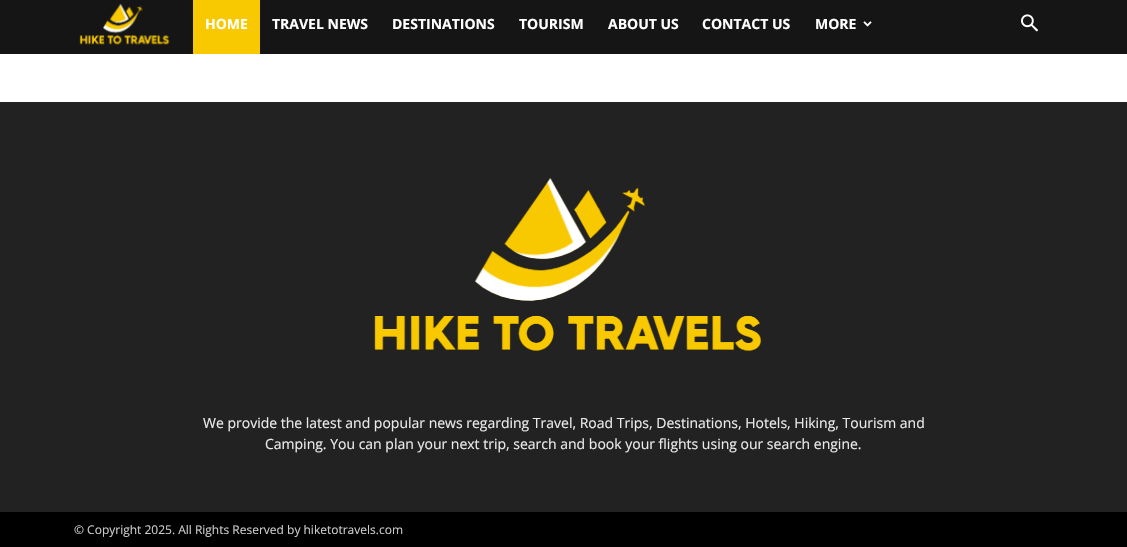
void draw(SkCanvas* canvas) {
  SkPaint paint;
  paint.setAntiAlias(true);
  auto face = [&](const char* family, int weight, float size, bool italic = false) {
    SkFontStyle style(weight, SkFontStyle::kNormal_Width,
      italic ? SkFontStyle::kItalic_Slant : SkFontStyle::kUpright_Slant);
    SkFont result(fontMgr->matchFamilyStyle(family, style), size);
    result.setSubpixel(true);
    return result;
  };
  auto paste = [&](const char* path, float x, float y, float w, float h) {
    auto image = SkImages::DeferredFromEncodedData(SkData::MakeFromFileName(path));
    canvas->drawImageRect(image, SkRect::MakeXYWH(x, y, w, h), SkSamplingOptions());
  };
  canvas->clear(0xffffffff);
  paint.setColor(0xff151515);
  canvas->drawRect(SkRect::MakeXYWH(0, 0, 1127, 54), paint);
  paste("img/1.png", 79, 3, 91, 42);
  paint.setColor(0xfff8c900);
  canvas->drawRect(SkRect::MakeXYWH(193, 0, 67, 54), paint);
  paste("img/2.png", 863, 21, 9, 6);
  paste("img/3.png", 1021, 14, 17, 18);
  paint.setColor(0xff222222);
  canvas->drawRect(SkRect::MakeXYWH(0, 102, 1127, 410), paint);
  paste("img/4.png", 374, 177, 388, 174);
  paint.setColor(0xff000000);
  canvas->drawRect(SkRect::MakeXYWH(0, 512, 1127, 35), paint);
  auto f0 = face("Open Sans", 700, 14);
  paint.setColor(0xffffffff);
  {
    const struct { const char* s; float x, y; } items[] = {
      {"HOME", 205, 29},
      {"TRAVEL NEWS", 272, 29},
      {"DESTINATIONS", 392, 29},
      {"TOURISM", 519, 29},
      {"ABOUT US", 608, 29},
      {"CONTACT US", 702, 29},
      {"MORE", 815, 29},
    };
    for (auto [s, x, y] : items) {
      canvas->drawString(s, x, y, f0, paint);
    }
  }
  auto f1 = face("Open Sans", 400, 14);
  paint.setColor(0xffeaeaea);
  canvas->drawString("We provide the latest and popular news regarding Travel, Road Trips, Destinations, Hotels, Hiking, Tourism and", 203, 428, f1, paint);
  canvas->drawString("Camping. You can plan your next trip, search and book your flights using our search engine.", 265, 449, f1, paint);
  auto f2 = face("Open Sans", 400, 12);
  paint.setColor(0xffcccccc);
  canvas->drawString("© Copyright 2025. All Rights Reserved by hiketotravels.com", 74, 534, f2, paint);
}
